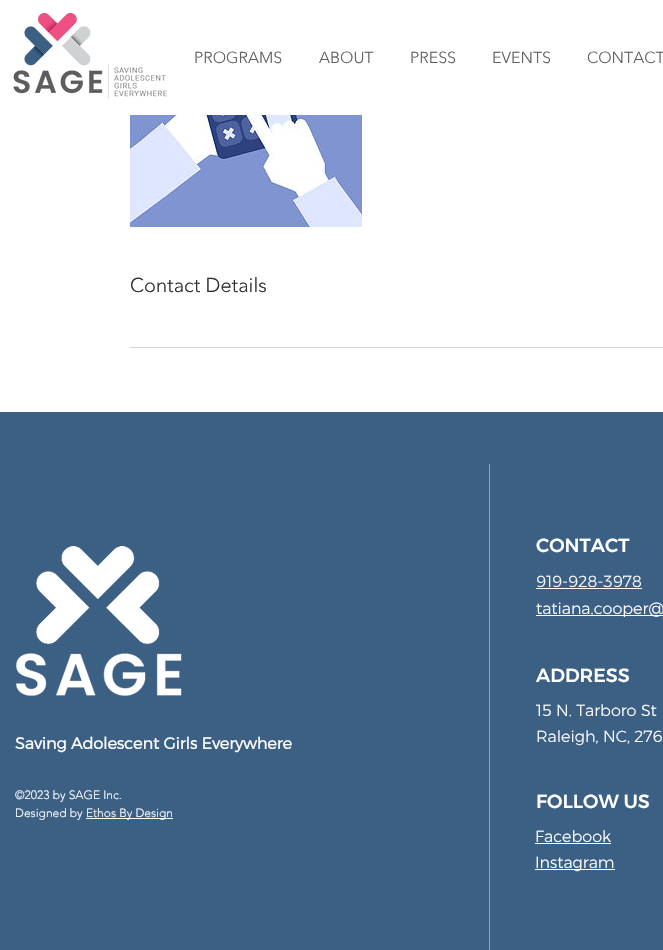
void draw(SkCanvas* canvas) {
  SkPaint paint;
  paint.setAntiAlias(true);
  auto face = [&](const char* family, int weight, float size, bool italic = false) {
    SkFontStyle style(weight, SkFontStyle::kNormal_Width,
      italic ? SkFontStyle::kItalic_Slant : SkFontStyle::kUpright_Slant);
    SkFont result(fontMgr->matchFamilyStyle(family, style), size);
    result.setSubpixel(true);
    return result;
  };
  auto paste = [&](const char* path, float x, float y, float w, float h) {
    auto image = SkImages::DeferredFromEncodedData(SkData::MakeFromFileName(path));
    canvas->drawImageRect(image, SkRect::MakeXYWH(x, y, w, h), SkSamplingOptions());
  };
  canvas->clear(0xffffffff);
  paste("img/1.png", 13, 13, 154, 86);
  paste("img/2.png", 130, 115, 232, 112);
  {
    const struct { float x, y, w, h; SkColor color; } items[] = {
      {130, 347, 533, 1, 0xffd5d5d5},
      {0, 412, 663, 52, 0xff3c5f84},
      {489, 464, 1, 486, 0xffa0a09f},
      {0, 464, 489, 486, 0xff3c5f84},
    };
    for (auto [x, y, w, h, color] : items) {
      paint.setColor(color);
      canvas->drawRect(SkRect::MakeXYWH(x, y, w, h), paint);
    }
  }
  paste("img/3.png", 15, 546, 167, 150);
  {
    const struct { float x, y, w, h; SkColor color; } items[] = {
      {86, 818, 87, 1, 0xffffffff},
      {490, 464, 173, 486, 0xff3c5f84},
      {536, 588, 106, 1, 0xffffffff},
      {536, 615, 127, 1, 0xffffffff},
      {535, 843, 76, 1, 0xffffffff},
      {535, 869, 80, 1, 0xffffffff},
    };
    for (auto [x, y, w, h, color] : items) {
      paint.setColor(color);
      canvas->drawRect(SkRect::MakeXYWH(x, y, w, h), paint);
    }
  }
  auto f0 = face("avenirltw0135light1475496", 300, 16);
  paint.setColor(0xff605e5e);
  {
    const struct { const char* s; float x, y; } items[] = {
      {"PROGRAMS", 194, 63},
      {"ABOUT", 319, 63},
      {"PRESS", 410, 63},
      {"EVENTS", 492, 63},
      {"CONTACT", 587, 63},
    };
    for (auto [s, x, y] : items) {
      canvas->drawString(s, x, y, f0, paint);
    }
  }
  auto f1 = face("avenirltw0135light1475496", 300, 20);
  paint.setColor(0xff2f2e2e);
  canvas->drawString("Contact Details", 130, 292, f1, paint);
  auto f2 = face("Montserrat", 700, 16);
  paint.setColor(0xffffffff);
  canvas->drawString("Saving Adolescent Girls Everywhere", 15, 749, f2, paint);
  auto f3 = face("avenirltw0135light1475496", 300, 12);
  {
    const struct { const char* s; float x, y; } items[] = {
      {"©2023 by SAGE Inc.", 15, 799},
      {"Designed by", 15, 817},
      {"Ethos By Design", 86, 817},
    };
    for (auto [s, x, y] : items) {
      canvas->drawString(s, x, y, f3, paint);
    }
  }
  auto f4 = face("Montserrat", 500, 19);
  canvas->drawString("CONTACT", 536, 552, f4, paint);
  auto f5 = face("Montserrat", 300, 16);
  canvas->drawString("919-928-3978", 536, 587, f5, paint);
  canvas->drawString("tatiana.cooper@", 536, 614, f5, paint);
  canvas->drawString("ADDRESS", 536, 682, f4, paint);
  canvas->drawString("15 N. Tarboro St", 536, 716, f5, paint);
  canvas->drawString("Raleigh, NC, 276", 536, 742, f5, paint);
  canvas->drawString("FOLLOW US", 536, 808, f4, paint);
  canvas->drawString("Facebook", 535, 842, f5, paint);
  canvas->drawString("Instagram", 535, 868, f5, paint);
}
